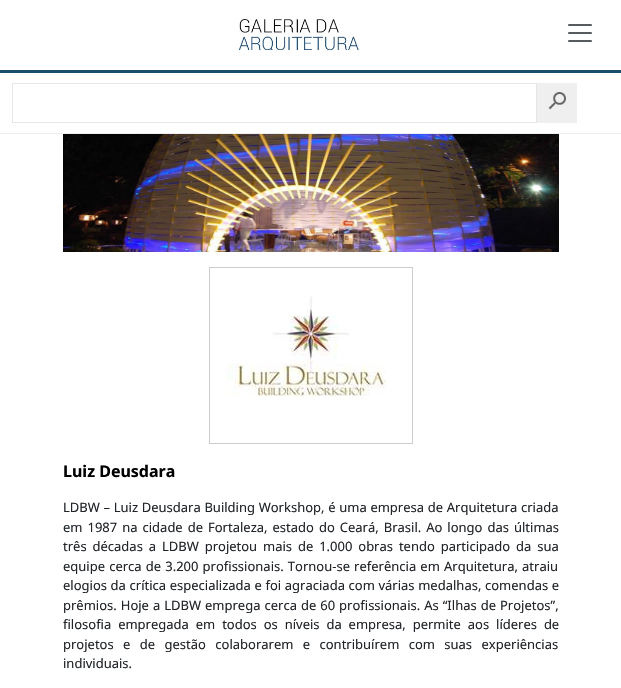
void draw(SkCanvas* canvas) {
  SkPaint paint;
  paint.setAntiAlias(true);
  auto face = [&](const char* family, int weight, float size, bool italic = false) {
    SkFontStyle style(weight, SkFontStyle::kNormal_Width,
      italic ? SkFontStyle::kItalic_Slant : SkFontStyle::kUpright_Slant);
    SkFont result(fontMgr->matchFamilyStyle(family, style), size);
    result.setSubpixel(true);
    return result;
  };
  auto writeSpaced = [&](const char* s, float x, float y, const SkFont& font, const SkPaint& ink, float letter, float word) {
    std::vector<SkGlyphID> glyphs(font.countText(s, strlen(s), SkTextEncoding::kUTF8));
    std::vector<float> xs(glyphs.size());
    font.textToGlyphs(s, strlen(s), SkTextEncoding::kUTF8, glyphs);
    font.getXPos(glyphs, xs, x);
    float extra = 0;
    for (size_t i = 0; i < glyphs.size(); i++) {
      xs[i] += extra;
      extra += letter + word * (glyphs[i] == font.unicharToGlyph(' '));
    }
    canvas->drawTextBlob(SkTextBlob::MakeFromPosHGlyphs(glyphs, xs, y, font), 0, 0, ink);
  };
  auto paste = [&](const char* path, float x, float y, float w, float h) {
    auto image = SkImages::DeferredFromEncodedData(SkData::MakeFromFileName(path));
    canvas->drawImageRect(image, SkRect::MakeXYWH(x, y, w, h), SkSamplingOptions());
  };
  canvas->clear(0xffffffff);
  paste("img/1.png", 239, 19, 120, 31);
  paste("img/2.png", 568, 24, 24, 18);
  paint.setColor(0xff184e6a);
  canvas->drawRect(SkRect::MakeXYWH(0, 70, 621, 3), paint);
  paint.setColor(0xffeeeeee);
  canvas->drawRect(SkRect::MakeXYWH(0, 133, 621, 1), paint);
  paint.setStroke(true);
  paint.setStrokeWidth(1);
  paint.setColor(0xffe6e6e6);
  canvas->drawRect(SkRect::MakeXYWH(12.5f, 83.5f, 524, 39), paint);
  paint.setStroke(false);
  paint.setColor(0xffefefef);
  canvas->drawRect(SkRect::MakeXYWH(537, 83, 40, 40), paint);
  paste("img/3.png", 548, 92, 18, 18);
  paste("img/4.png", 63, 134, 496, 118);
  paint.setStroke(true);
  paint.setColor(0xffcccccc);
  canvas->drawRect(SkRect::MakeXYWH(209.5f, 267.5f, 203, 176), paint);
  paste("img/5.png", 226, 296, 160, 101);
  auto f0 = face("Noto Sans", 700, 16);
  paint.setStroke(false);
  paint.setColor(0xff000000);
  canvas->drawString("Luiz Deusdara", 63, 477, f0, paint);
  auto f1 = face("Noto Sans", 400, 13);
  paint.setColor(0xff212529);
  writeSpaced("LDBW – Luiz Deusdara Building Workshop, é uma empresa de Arquitetura criada", 63, 512, f1, paint, 0, 0.3f);
  writeSpaced("em 1987 na cidade de Fortaleza, estado do Ceará, Brasil. Ao longo das últimas", 63, 532, f1, paint, 0, 1.6f);
  writeSpaced("três décadas a LDBW projetou mais de 1.000 obras tendo participado da sua", 63, 551, f1, paint, 0, 2.5f);
  writeSpaced("equipe cerca de 3.200 profissionais. Tornou-se referência em Arquitetura, atraiu", 63, 571, f1, paint, 0, 0.75f);
  writeSpaced("elogios da crítica especializada e foi agraciada com várias medalhas, comendas e", 63, 590, f1, paint, 0, 0.25f);
  writeSpaced("prêmios. Hoje a LDBW emprega cerca de 60 profissionais. As “Ilhas de Projetos”,", 63, 610, f1, paint, 0, 0.6f);
  writeSpaced("filosofia empregada em todos os níveis da empresa, permite aos líderes de", 63, 629, f1, paint, 0, 3.5f);
  writeSpaced("projetos e de gestão colaborarem e contribuírem com suas experiências", 63, 649, f1, paint, 0, 6);
  canvas->drawString("individuais.", 63, 668, f1, paint);
}
